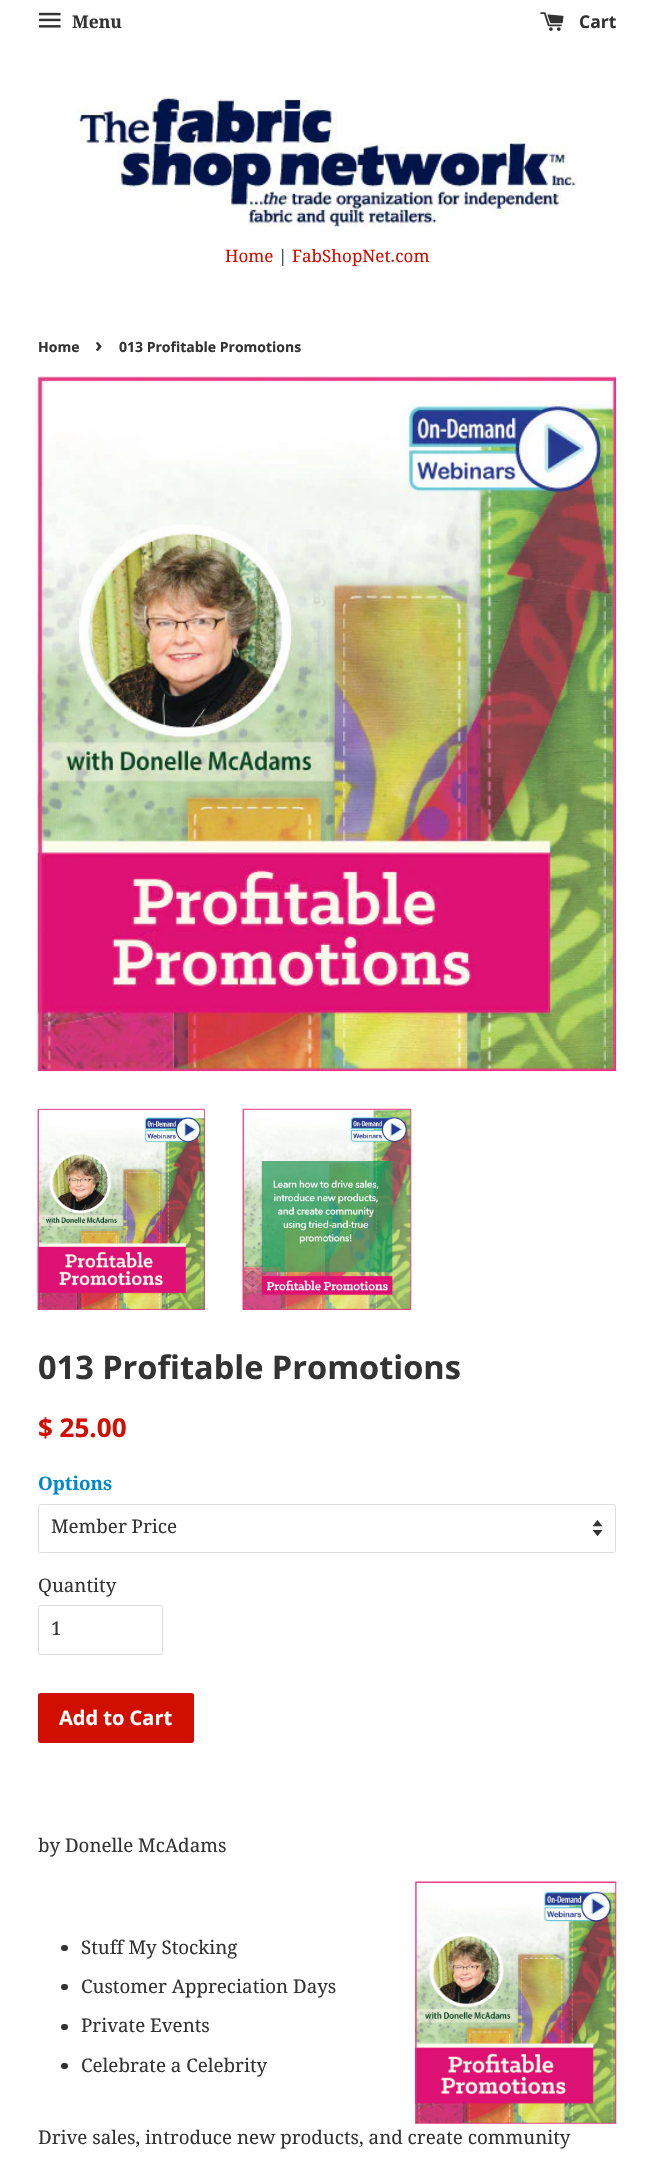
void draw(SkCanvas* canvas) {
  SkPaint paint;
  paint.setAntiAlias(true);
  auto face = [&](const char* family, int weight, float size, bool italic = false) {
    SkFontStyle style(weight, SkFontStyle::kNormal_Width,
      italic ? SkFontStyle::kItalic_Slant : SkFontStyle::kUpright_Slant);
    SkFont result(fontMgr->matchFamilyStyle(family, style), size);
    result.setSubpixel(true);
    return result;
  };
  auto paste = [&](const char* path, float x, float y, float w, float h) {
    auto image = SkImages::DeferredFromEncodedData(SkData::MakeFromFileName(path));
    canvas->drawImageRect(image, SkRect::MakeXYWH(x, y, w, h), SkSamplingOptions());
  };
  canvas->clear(0xffffffff);
  paste("img/1.png", 38, 12, 23, 16);
  paste("img/2.png", 540, 12, 24, 19);
  paste("img/3.png", 77, 96, 501, 131);
  paste("img/4.png", 37, 376, 580, 696);
  paste("img/5.png", 37, 1108, 168, 202);
  paste("img/6.png", 242, 1108, 170, 202);
  paste("img/7.png", 593, 1520, 10, 16);
  paint.setStroke(true);
  paint.setStrokeWidth(1);
  paint.setColor(0xffdddddd);
  canvas->drawRoundRect(SkRect::MakeXYWH(38.5f, 1504.5f, 577, 48), 2, 2, paint);
  canvas->drawRoundRect(SkRect::MakeXYWH(38.5f, 1605.5f, 124, 49), 2, 2, paint);
  paint.setStroke(false);
  paint.setColor(0xffd10f00);
  canvas->drawRoundRect(SkRect::MakeXYWH(38, 1693, 156, 50), 2.5f, 2.5f, paint);
  paint.setColor(0xff333333);
  canvas->drawRoundRect(SkRect::MakeXYWH(61, 1945, 7, 6), 3, 3, paint);
  canvas->drawRoundRect(SkRect::MakeXYWH(61, 1984, 7, 6), 3, 3, paint);
  canvas->drawRoundRect(SkRect::MakeXYWH(61, 2024, 7, 6), 3, 3, paint);
  canvas->drawRoundRect(SkRect::MakeXYWH(61, 2063, 7, 6), 3, 3, paint);
  paste("img/8.png", 415, 1881, 202, 243);
  auto f0 = face("Droid Serif", 700, 17.5f);
  canvas->drawString("Menu", 72, 28, f0, paint);
  auto f1 = face("Open Sans", 700, 17.5f);
  canvas->drawString("Cart", 579, 28, f1, paint);
  auto f2 = face("Droid Serif", 400, 17);
  paint.setColor(0xffd10f00);
  canvas->drawString("Home", 225, 262, f2, paint);
  paint.setColor(0xff333333);
  canvas->drawString("|", 278, 262, f2, paint);
  paint.setColor(0xffd10f00);
  canvas->drawString("FabShopNet.com", 292, 262, f2, paint);
  auto f3 = face("Open Sans", 700, 14);
  paint.setColor(0xff333333);
  canvas->drawString("Home", 38, 352, f3, paint);
  auto f4 = face("Open Sans", 700, 20);
  canvas->drawString("›", 95, 352, f4, paint);
  canvas->drawString("013 Profitable Promotions", 119, 352, f3, paint);
  auto f5 = face("Open Sans", 700, 32.5f);
  canvas->drawString("013 Profitable Promotions", 38, 1379, f5, paint);
  auto f6 = face("Open Sans", 700, 26);
  paint.setColor(0xffd10f00);
  canvas->drawString("$ 25.00", 38, 1437, f6, paint);
  auto f7 = face("Droid Serif", 700, 18.75f);
  paint.setColor(0xff0088cd);
  canvas->drawString("Options", 38, 1490, f7, paint);
  auto f8 = face("Droid Serif", 400, 18.75f);
  paint.setColor(0xff333333);
  {
    const struct { const char* s; float x, y; } items[] = {
      {"Member Price", 51, 1533},
      {"Quantity", 38, 1592},
      {"1", 51, 1635},
    };
    for (auto [s, x, y] : items) {
      canvas->drawString(s, x, y, f8, paint);
    }
  }
  paint.setColor(0xffffffff);
  canvas->drawString("Add to Cart", 59, 1725, f4, paint);
  paint.setColor(0xff333333);
  {
    const struct { const char* s; float x, y; } items[] = {
      {"by Donelle McAdams", 38, 1852},
      {"Stuff My Stocking", 81, 1954},
      {"Customer Appreciation Days", 81, 1993},
      {"Private Events", 81, 2032},
      {"Celebrate a Celebrity", 81, 2072},
      {"Drive sales, introduce new products, and create community", 38, 2144},
    };
    for (auto [s, x, y] : items) {
      canvas->drawString(s, x, y, f8, paint);
    }
  }
}
